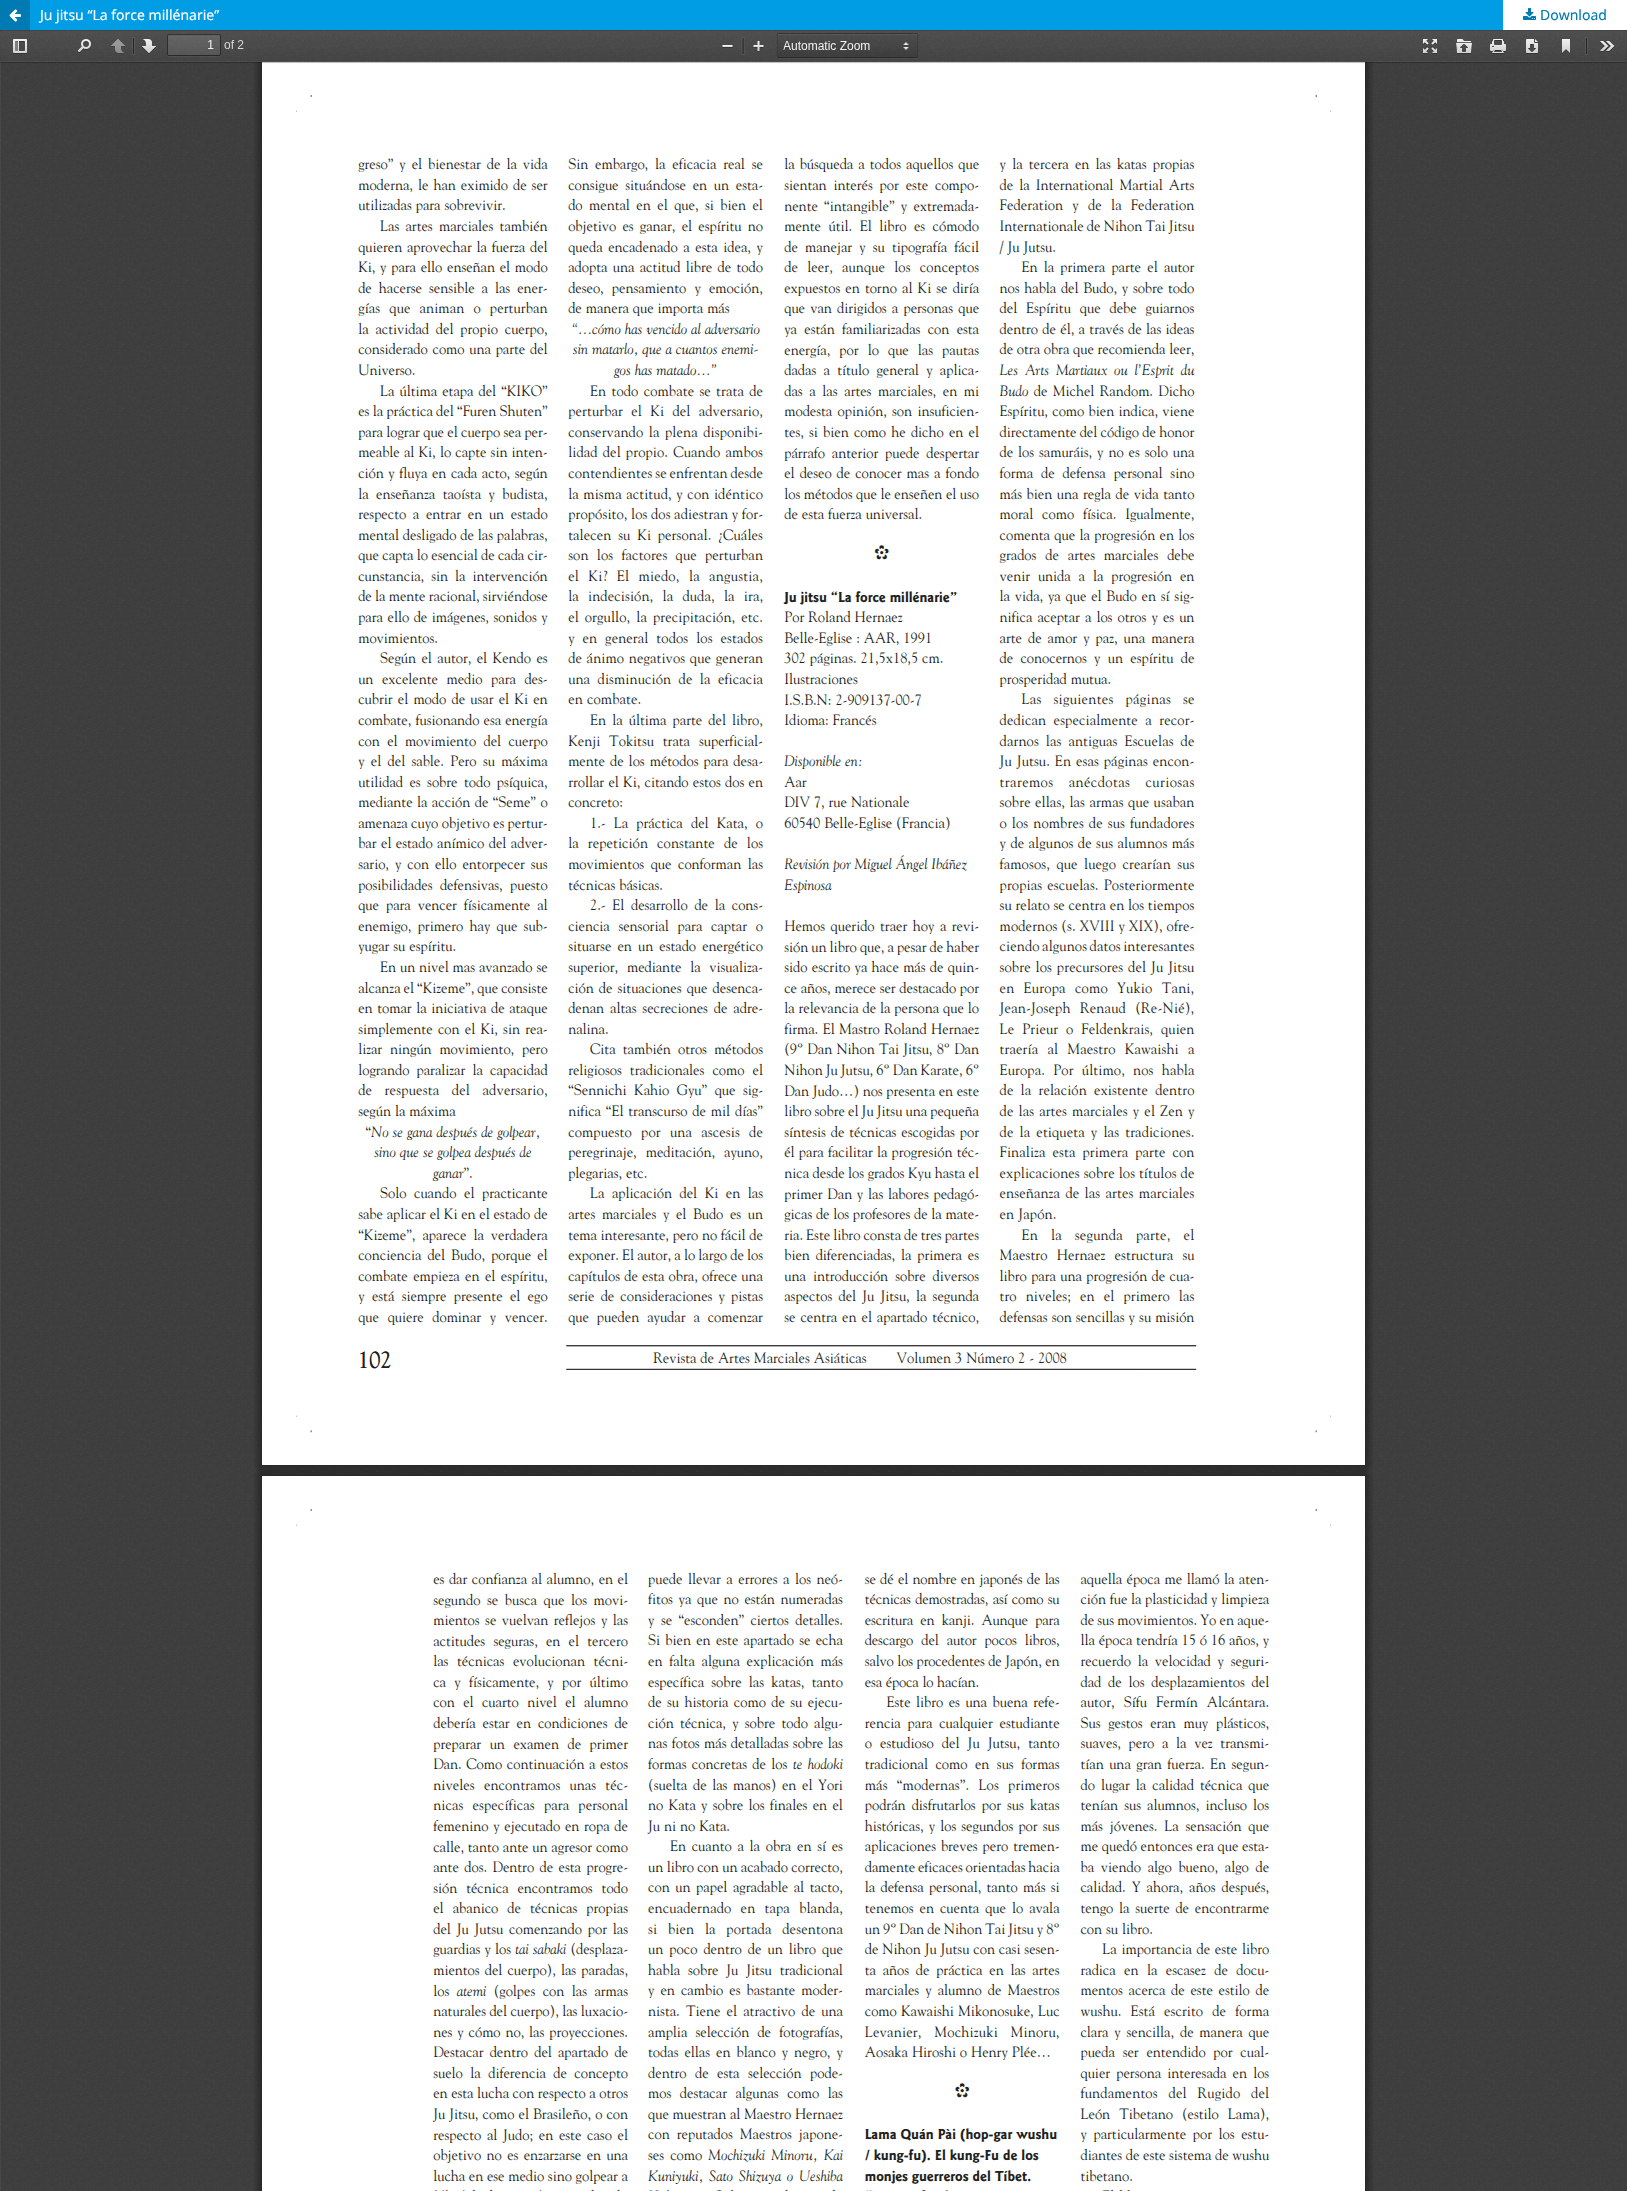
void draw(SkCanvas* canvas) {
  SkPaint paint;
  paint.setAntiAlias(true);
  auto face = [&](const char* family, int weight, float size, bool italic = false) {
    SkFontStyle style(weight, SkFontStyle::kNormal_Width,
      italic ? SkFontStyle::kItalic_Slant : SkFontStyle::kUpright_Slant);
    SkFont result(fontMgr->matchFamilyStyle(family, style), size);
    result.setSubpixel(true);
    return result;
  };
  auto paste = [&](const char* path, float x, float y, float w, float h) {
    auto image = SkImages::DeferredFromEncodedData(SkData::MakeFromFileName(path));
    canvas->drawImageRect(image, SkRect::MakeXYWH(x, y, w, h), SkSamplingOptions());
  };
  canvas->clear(0xffffffff);
  paint.setColor(0xff009de5);
  canvas->drawRect(SkRect::MakeXYWH(30, 0, 1473, 30), paint);
  paint.setColor(0xff007ab2);
  canvas->drawRect(SkRect::MakeXYWH(0, 0, 30, 30), paint);
  paste("img/1.png", 9, 9, 12, 13);
  paste("img/2.png", 1523, 8, 13, 12);
  paste("img/3.png", 0, 30, 1627, 2161);
  auto f0 = face("Noto Sans", 400, 14);
  paint.setColor(0xffffffff);
  canvas->drawString("Ju jitsu “La force millénarie”", 40, 20, f0, paint);
  paint.setColor(0xff007ab2);
  canvas->drawString("Download", 1540, 20, f0, paint);
}
